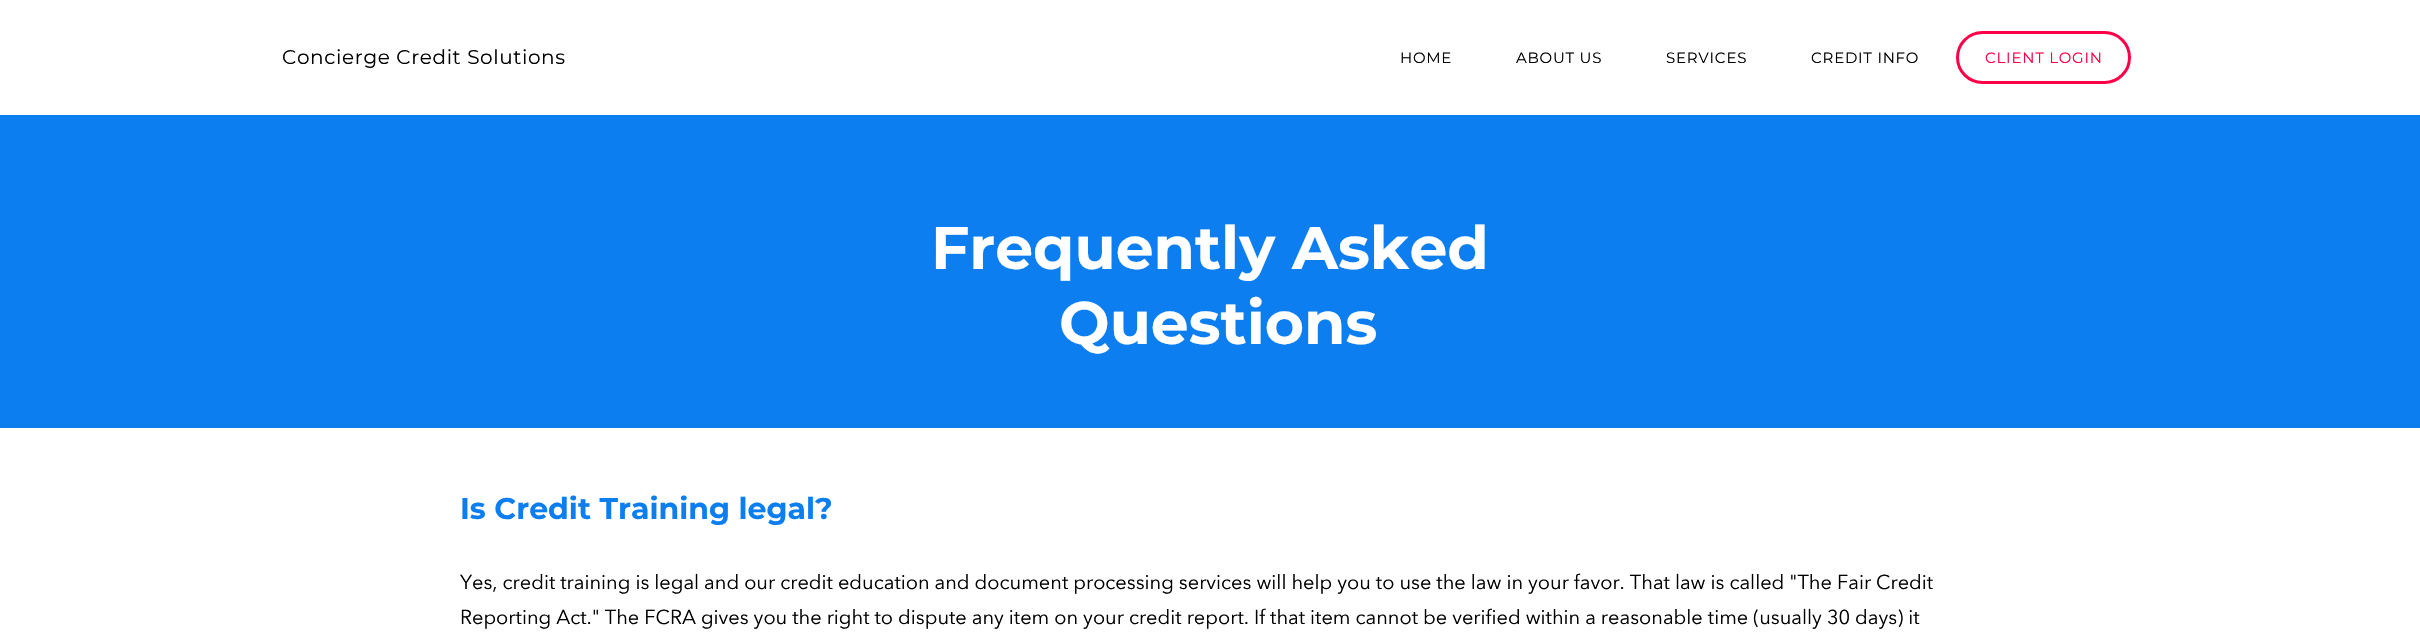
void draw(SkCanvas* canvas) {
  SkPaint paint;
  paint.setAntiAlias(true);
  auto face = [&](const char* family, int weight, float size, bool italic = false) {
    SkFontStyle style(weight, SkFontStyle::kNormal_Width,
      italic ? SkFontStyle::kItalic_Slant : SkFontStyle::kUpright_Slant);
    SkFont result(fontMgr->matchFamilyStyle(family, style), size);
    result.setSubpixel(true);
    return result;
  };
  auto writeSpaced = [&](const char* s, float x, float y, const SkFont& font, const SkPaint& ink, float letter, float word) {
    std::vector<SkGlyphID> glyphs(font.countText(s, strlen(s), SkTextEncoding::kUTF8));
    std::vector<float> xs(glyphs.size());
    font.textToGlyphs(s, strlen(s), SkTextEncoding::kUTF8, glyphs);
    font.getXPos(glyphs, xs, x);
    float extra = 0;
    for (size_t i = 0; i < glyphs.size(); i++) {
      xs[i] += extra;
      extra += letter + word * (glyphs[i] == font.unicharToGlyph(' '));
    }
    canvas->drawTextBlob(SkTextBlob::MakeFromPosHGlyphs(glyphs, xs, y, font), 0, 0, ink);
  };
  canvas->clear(0xff0c7ef0);
  paint.setColor(0xffffffff);
  canvas->drawRect(SkRect::MakeXYWH(0, 0, 2420, 115), paint);
  paint.setStroke(true);
  paint.setStrokeWidth(3);
  paint.setColor(0xffff0048);
  canvas->drawRoundRect(SkRect::MakeXYWH(1957.5f, 32.5f, 172, 50), 25, 25, paint);
  paint.setStroke(false);
  paint.setColor(0xffffffff);
  canvas->drawRect(SkRect::MakeXYWH(0, 428, 2420, 206), paint);
  auto f0 = face("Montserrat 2", 100, 20);
  paint.setColor(0xff000000);
  writeSpaced("Concierge Credit Solutions", 282, 64, f0, paint, 0.6f, 0);
  auto f1 = face("Montserrat 2", 100, 15);
  {
    const struct { const char* s; float x, y; } items[] = {
      {"HOME", 1400, 63},
      {"ABOUT US", 1516, 63},
      {"SERVICES", 1666, 63},
      {"CREDIT INFO", 1811, 63},
    };
    for (auto [s, x, y] : items) {
      writeSpaced(s, x, y, f1, paint, 0.75f, 0);
    }
  }
  paint.setColor(0xffff0048);
  writeSpaced("CLIENT LOGIN", 1985, 63, f1, paint, 0.75f, 0);
  auto f2 = face("Montserrat", 100, 60);
  paint.setColor(0xffffffff);
  canvas->drawString("Frequently Asked", 931, 269, f2, paint);
  canvas->drawString("Questions", 1059, 344, f2, paint);
  auto f3 = face("Montserrat", 100, 30);
  paint.setColor(0xff0c7ef0);
  canvas->drawString("Is Credit Training legal?", 460, 519, f3, paint);
  auto f4 = face("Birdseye", 400, 20);
  paint.setColor(0xff000000);
  canvas->drawString("Yes, credit training is legal and our credit education and document processing services will help you to use the law in your favor. That law is called \"The Fair Credit", 460, 589, f4, paint);
  canvas->drawString("Reporting Act.\" The FCRA gives you the right to dispute any item on your credit report. If that item cannot be verified within a reasonable time (usually 30 days) it", 460, 624, f4, paint);
}
